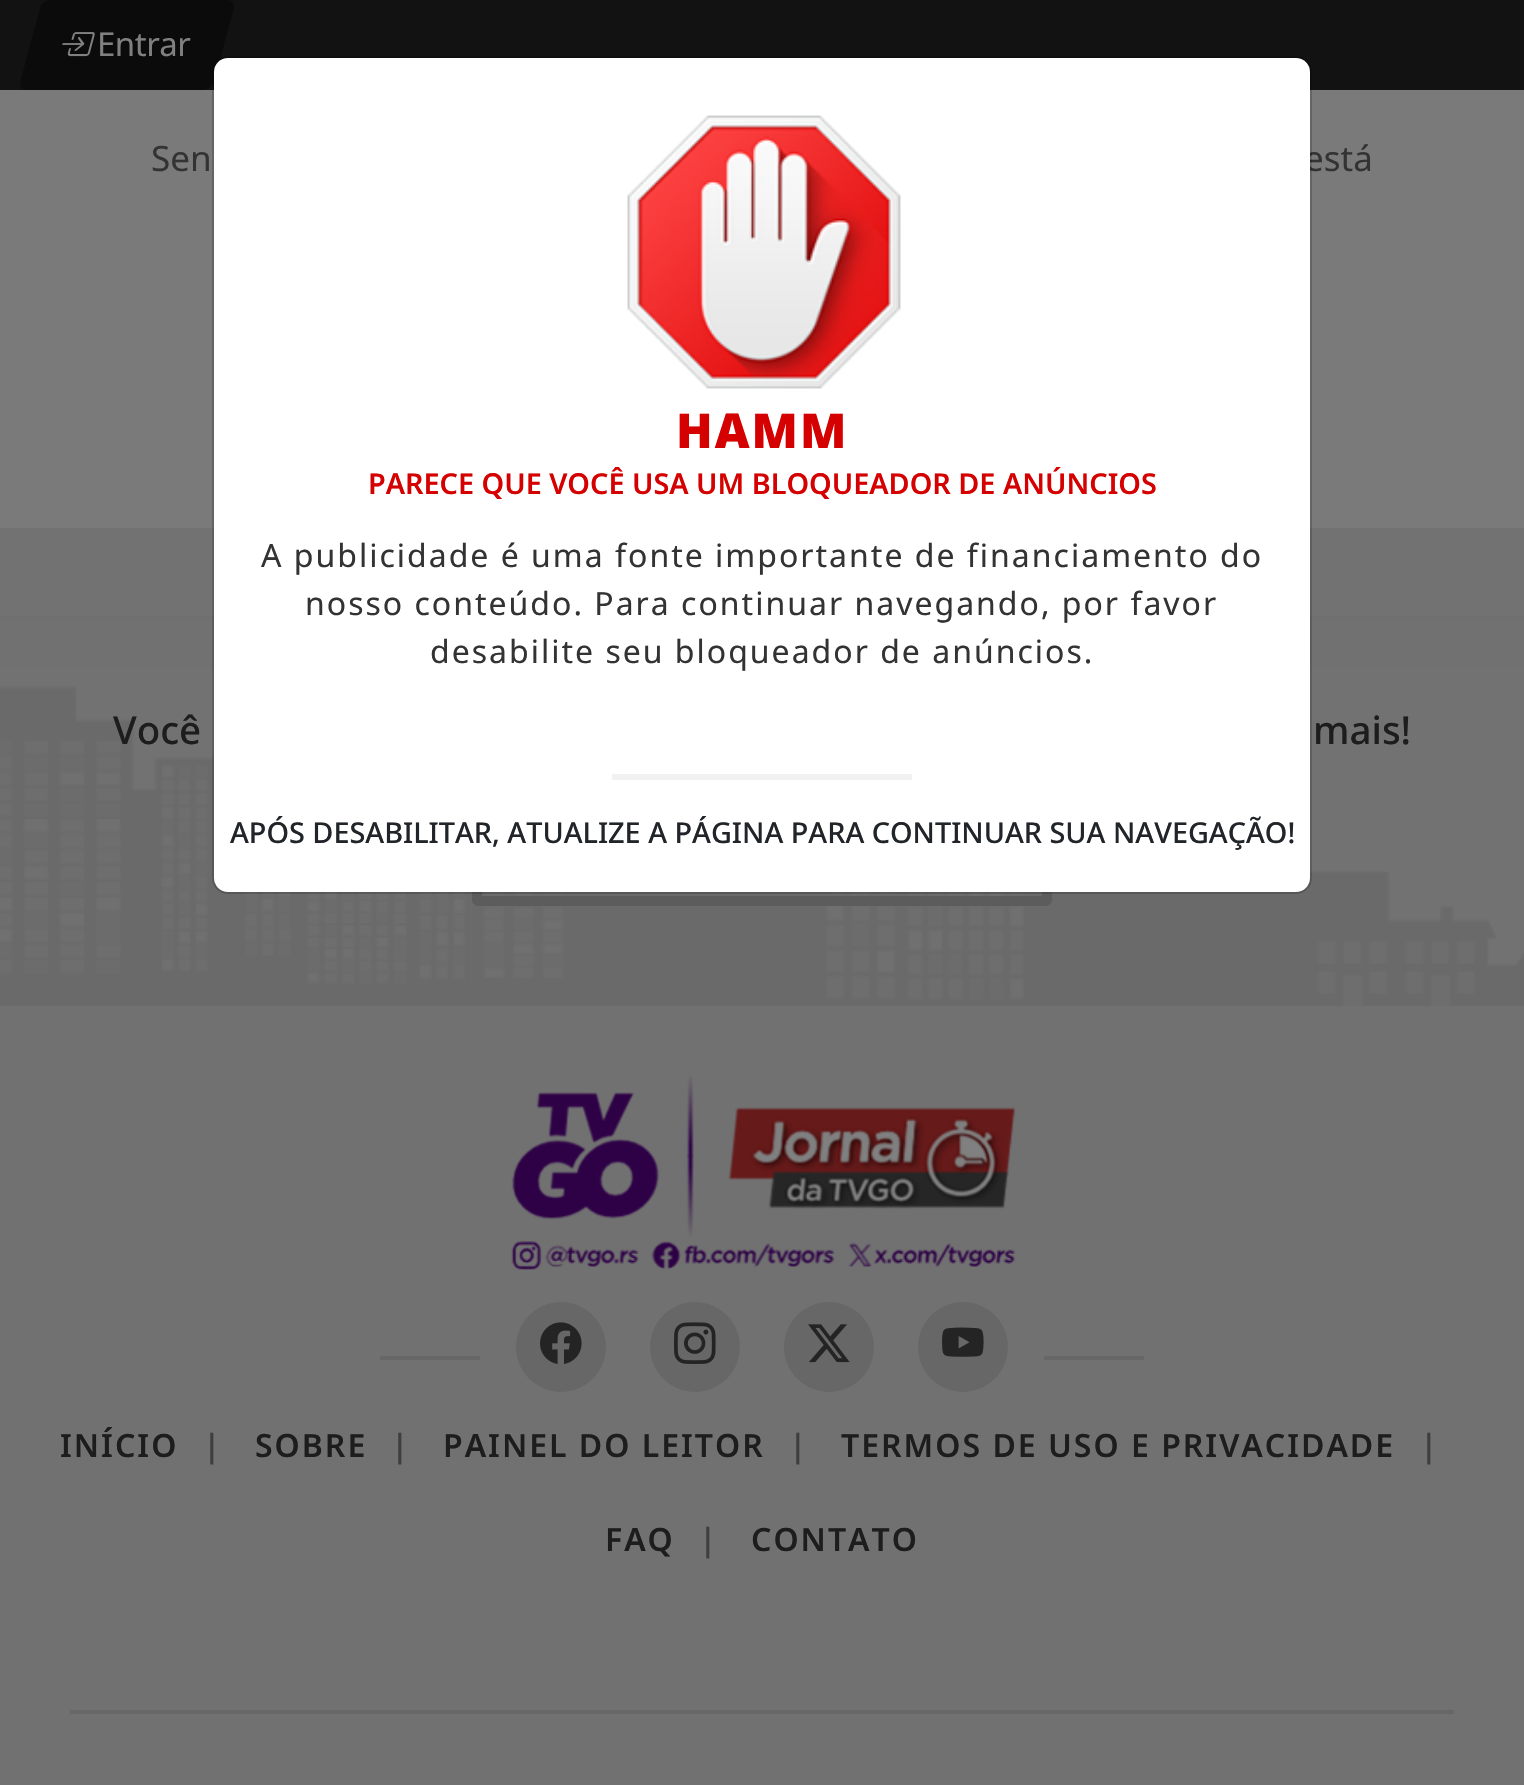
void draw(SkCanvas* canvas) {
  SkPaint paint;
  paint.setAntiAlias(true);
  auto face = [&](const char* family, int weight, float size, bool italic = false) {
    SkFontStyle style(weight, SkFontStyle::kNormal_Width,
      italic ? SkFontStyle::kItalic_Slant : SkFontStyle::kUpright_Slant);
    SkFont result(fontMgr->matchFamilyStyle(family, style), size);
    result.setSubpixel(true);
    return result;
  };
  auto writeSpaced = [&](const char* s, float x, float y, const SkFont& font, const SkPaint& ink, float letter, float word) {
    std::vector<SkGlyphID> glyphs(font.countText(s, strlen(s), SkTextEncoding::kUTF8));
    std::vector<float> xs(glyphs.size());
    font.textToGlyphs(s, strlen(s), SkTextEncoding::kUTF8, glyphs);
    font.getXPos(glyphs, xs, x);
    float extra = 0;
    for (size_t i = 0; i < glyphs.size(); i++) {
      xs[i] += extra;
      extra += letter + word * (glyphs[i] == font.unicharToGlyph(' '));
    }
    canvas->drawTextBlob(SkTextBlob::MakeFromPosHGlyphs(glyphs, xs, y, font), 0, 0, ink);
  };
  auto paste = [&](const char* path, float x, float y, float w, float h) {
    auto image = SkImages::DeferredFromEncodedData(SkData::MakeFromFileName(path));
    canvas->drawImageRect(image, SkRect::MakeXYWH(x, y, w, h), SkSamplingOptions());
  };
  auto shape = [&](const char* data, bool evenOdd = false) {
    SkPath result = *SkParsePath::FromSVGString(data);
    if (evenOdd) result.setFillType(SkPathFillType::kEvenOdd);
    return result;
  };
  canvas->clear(0xff7a7a7a);
  paint.setColor(0xff121212);
  canvas->drawRect(SkRect::MakeXYWH(0, 0, 1524, 90), paint);
  paint.setColor(0xff0b0b0b);
  canvas->drawPath(shape("M50 0H228C232 0 235 4 234 8L214 82C213 86 208 90 204 90H26C22 90 19 86 20 82L40 8C41 4 46 0 50 0Z"), paint);
  paste("img/1.png", 62, 32, 33, 25);
  paint.setColor(0xff727272);
  canvas->drawRect(SkRect::MakeXYWH(0, 528, 1524, 88), paint);
  paste("img/3.png", 0, 616, 1524, 390);
  paint.setStroke(true);
  paint.setStrokeWidth(10);
  paint.setColor(0xff5c5c5c);
  canvas->drawRoundRect(SkRect::MakeXYWH(477, 811, 570, 90), 1, 1, paint);
  paint.setStroke(false);
  paint.setColor(0xff717171);
  canvas->drawRect(SkRect::MakeXYWH(0, 1006, 1524, 779), paint);
  paste("img/4.png", 511, 1076, 505, 194);
  paint.setColor(0xff676767);
  canvas->drawRect(SkRect::MakeXYWH(380, 1356, 100, 4), paint);
  canvas->drawCircle(561, 1347, 45, paint);
  paste("img/5.png", 540, 1322, 42, 42);
  canvas->drawCircle(695, 1347, 45, paint);
  paste("img/6.png", 674, 1322, 42, 42);
  canvas->drawCircle(829, 1347, 45, paint);
  paste("img/7.png", 808, 1324, 42, 39);
  canvas->drawCircle(963, 1347, 45, paint);
  paste("img/8.png", 942, 1327, 42, 30);
  canvas->drawRect(SkRect::MakeXYWH(1044, 1356, 100, 4), paint);
  canvas->drawRect(SkRect::MakeXYWH(70, 1710, 1384, 4), paint);
  auto f0 = face("Noto Sans", 400, 33);
  paint.setColor(0xff808080);
  writeSpaced("Entrar", 97, 56, f0, paint, -0.5f, 0);
  auto f1 = face("Noto Sans", 400, 35);
  paint.setColor(0xff333333);
  canvas->drawString("Sen", 151, 171, f1, paint);
  canvas->drawString("está", 1304, 171, f1, paint);
  paint.setColor(0xffffffff);
  canvas->drawRoundRect(SkRect::MakeXYWH(214, 58, 1096, 834), 14, 14, paint);
  paint.setStroke(true);
  paint.setStrokeWidth(2);
  paint.setColor(0x2e000000);
  canvas->drawRoundRect(SkRect::MakeXYWH(213, 57, 1098, 836), 15, 15, paint);
  paste("img/2.png", 627, 115, 274, 274);
  auto f2 = face("Noto Sans", 900, 48);
  paint.setStroke(false);
  paint.setColor(0xffd50000);
  writeSpaced("HAMM", 676, 448, f2, paint, 2, 0);
  auto f3 = face("Noto Sans", 600, 28.8f);
  canvas->drawString("PARECE QUE VOCÊ USA UM BLOQUEADOR DE ANÚNCIOS", 368, 494, f3, paint);
  auto f4 = face("Noto Sans", 400, 32);
  paint.setColor(0xff333333);
  {
    const struct { const char* s; float x, y; } items[] = {
      {"A publicidade é uma fonte importante de financiamento do", 261, 567},
      {"nosso conteúdo. Para continuar navegando, por favor", 305, 615},
      {"desabilite seu bloqueador de anúncios.", 430, 663},
    };
    for (auto [s, x, y] : items) {
      writeSpaced(s, x, y, f4, paint, 2, 0);
    }
  }
  paint.setColor(0xfff1f1f1);
  canvas->drawRect(SkRect::MakeXYWH(612, 774, 300, 6), paint);
  auto f5 = face("Noto Sans", 500, 28.8f);
  paint.setColor(0xff212529);
  canvas->drawString("APÓS DESABILITAR, ATUALIZE A PÁGINA PARA CONTINUAR SUA NAVEGAÇÃO!", 230, 843, f5, paint);
  auto f6 = face("Noto Sans", 500, 38.5f);
  paint.setColor(0xff1d1d1d);
  canvas->drawString("Você", 113, 744, f6, paint);
  canvas->drawString("mais!", 1313, 744, f6, paint);
  auto f7 = face("Noto Sans", 600, 32);
  writeSpaced("INÍCIO", 60, 1457, f7, paint, 2, 0);
  paint.setColor(0xff3e3e3e);
  writeSpaced("|", 203, 1457, f7, paint, 2, 0);
  paint.setColor(0xff1d1d1d);
  writeSpaced("SOBRE", 255, 1457, f7, paint, 2, 0);
  paint.setColor(0xff3e3e3e);
  writeSpaced("|", 391, 1457, f7, paint, 2, 0);
  paint.setColor(0xff1d1d1d);
  writeSpaced("PAINEL DO LEITOR", 443, 1457, f7, paint, 2, 0);
  paint.setColor(0xff3e3e3e);
  writeSpaced("|", 789, 1457, f7, paint, 2, 0);
  paint.setColor(0xff1d1d1d);
  writeSpaced("TERMOS DE USO E PRIVACIDADE", 841, 1457, f7, paint, 2, 0);
  paint.setColor(0xff3e3e3e);
  writeSpaced("|", 1420, 1457, f7, paint, 2, 0);
  paint.setColor(0xff1d1d1d);
  writeSpaced("FAQ", 605, 1551, f7, paint, 2, 0);
  paint.setColor(0xff3e3e3e);
  writeSpaced("|", 699, 1551, f7, paint, 2, 0);
  paint.setColor(0xff1d1d1d);
  writeSpaced("CONTATO", 751, 1551, f7, paint, 2, 0);
}
